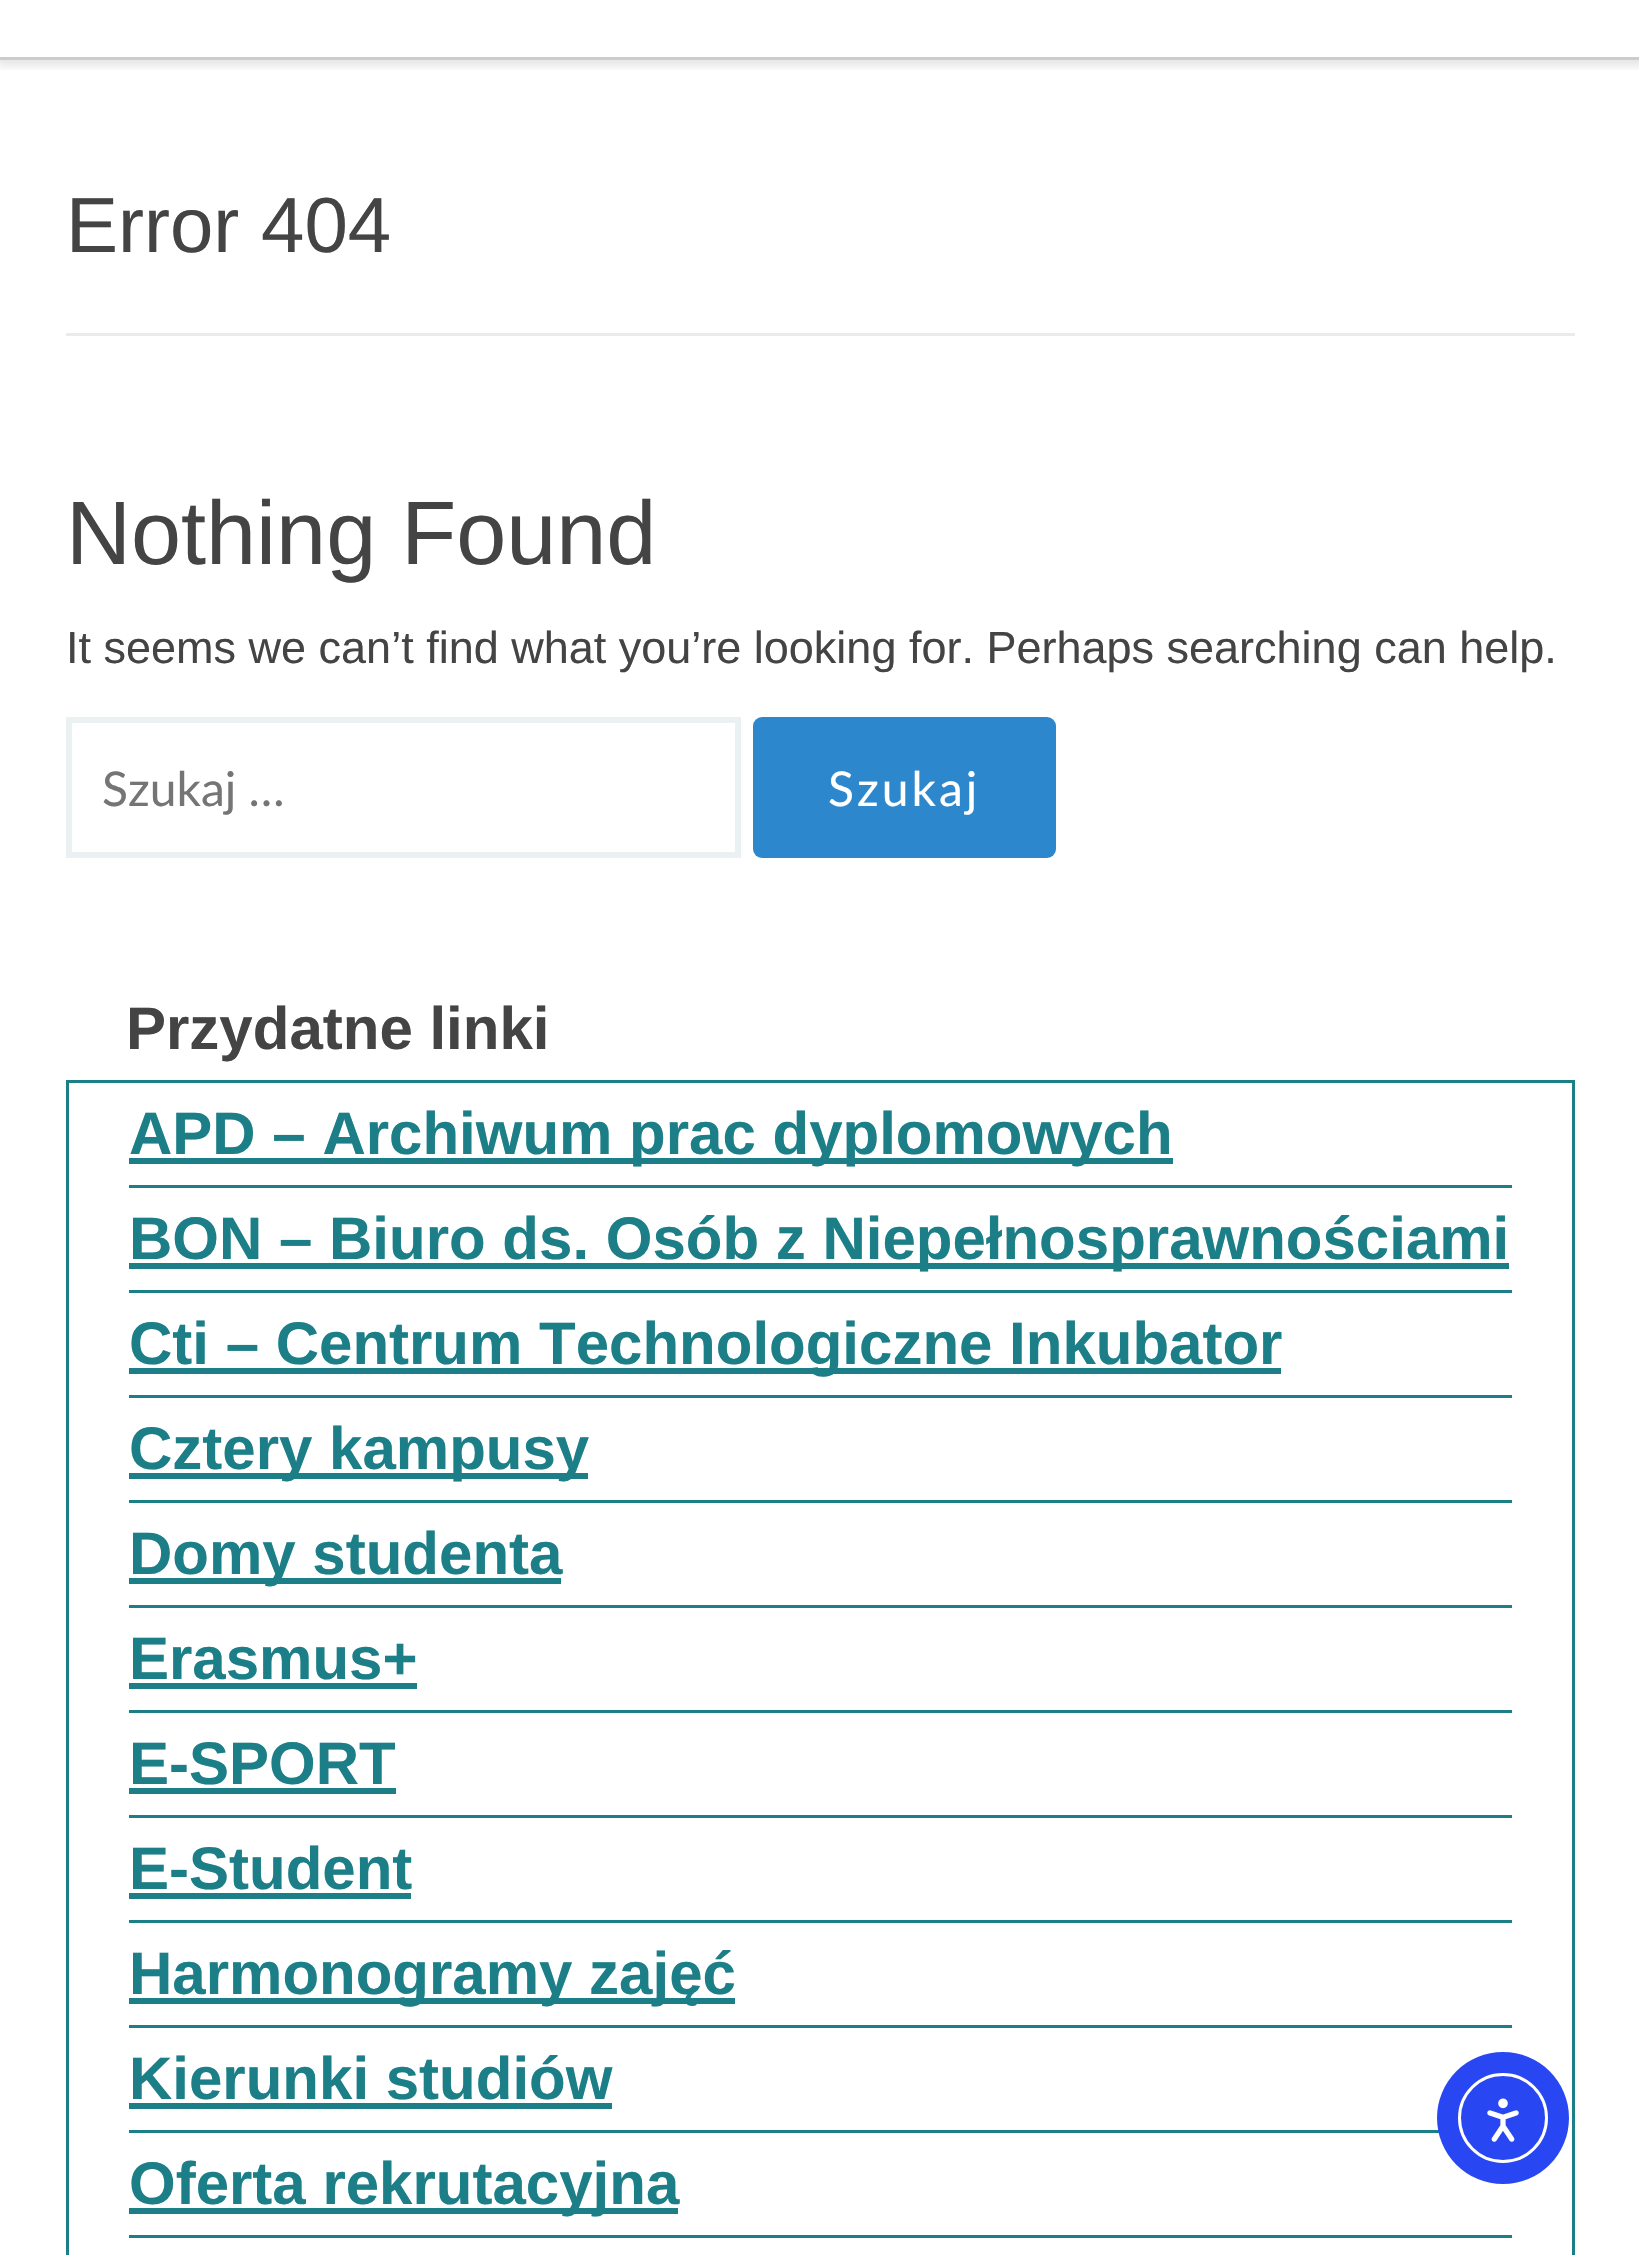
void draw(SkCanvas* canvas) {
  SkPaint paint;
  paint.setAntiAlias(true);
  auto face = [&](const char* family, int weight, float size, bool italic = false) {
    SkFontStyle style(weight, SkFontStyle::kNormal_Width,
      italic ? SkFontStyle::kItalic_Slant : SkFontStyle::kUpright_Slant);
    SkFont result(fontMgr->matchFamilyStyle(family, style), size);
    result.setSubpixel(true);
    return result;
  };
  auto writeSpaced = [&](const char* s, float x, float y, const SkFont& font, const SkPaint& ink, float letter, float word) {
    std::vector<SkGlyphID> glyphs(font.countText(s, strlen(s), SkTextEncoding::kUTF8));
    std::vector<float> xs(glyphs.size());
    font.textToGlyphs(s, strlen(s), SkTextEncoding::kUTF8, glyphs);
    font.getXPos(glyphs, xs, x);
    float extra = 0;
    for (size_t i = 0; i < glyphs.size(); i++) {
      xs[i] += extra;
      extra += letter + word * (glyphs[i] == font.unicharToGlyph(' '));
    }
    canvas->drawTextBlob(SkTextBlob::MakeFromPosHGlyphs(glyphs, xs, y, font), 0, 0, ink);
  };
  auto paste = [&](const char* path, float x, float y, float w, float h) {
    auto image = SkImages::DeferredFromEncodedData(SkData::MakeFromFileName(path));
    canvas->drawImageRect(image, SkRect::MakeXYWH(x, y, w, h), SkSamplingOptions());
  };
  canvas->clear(0xffffffff);
  canvas->save();
  canvas->clipRect(SkRect::MakeXYWH(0, 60, 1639, 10));
  paint.setColor(0x1a000000);
  paint.setMaskFilter(SkMaskFilter::MakeBlur(kNormal_SkBlurStyle, 4.5f));
  canvas->drawRect(SkRect::MakeXYWH(-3, -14, 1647, 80), paint);
  paint.setMaskFilter(nullptr);
  canvas->restore();
  paint.setColor(0xffcccccc);
  canvas->drawRect(SkRect::MakeXYWH(0, 57, 1639, 3), paint);
  paint.setColor(0xffebebeb);
  canvas->drawRect(SkRect::MakeXYWH(66, 333, 1509, 3), paint);
  paint.setStroke(true);
  paint.setStrokeWidth(6);
  paint.setColor(0xffebf0f2);
  canvas->drawRect(SkRect::MakeXYWH(69, 720, 669, 135), paint);
  paint.setStroke(false);
  paint.setColor(0xff2d87cc);
  canvas->drawRoundRect(SkRect::MakeXYWH(753, 717, 303, 141), 9, 9, paint);
  paint.setStroke(true);
  paint.setStrokeWidth(3);
  paint.setColor(0xff1c7e87);
  canvas->drawRect(SkRect::MakeXYWH(67.5f, 1081.5f, 1506, 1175), paint);
  paint.setStroke(false);
  {
    const struct { float x, y, w, h; SkColor color; } items[] = {
      {129, 1158, 1044, 6, 0xff1c7e87},
      {129, 1185, 1383, 3, 0xff1c7e87},
      {129, 1263, 1380, 6, 0xff1c7e87},
      {129, 1290, 1383, 3, 0xff1c7e87},
      {129, 1368, 1152, 6, 0xff1c7e87},
      {129, 1395, 1383, 3, 0xff1c7e87},
      {129, 1473, 459, 6, 0xff1c7e87},
      {129, 1500, 1383, 3, 0xff1c7e87},
      {129, 1578, 432, 6, 0xff1c7e87},
      {129, 1605, 1383, 3, 0xff1c7e87},
      {129, 1683, 288, 6, 0xff1c7e87},
      {129, 1710, 1383, 3, 0xff1c7e87},
      {129, 1788, 267, 6, 0xff1c7e87},
      {129, 1815, 1383, 3, 0xff1c7e87},
      {129, 1893, 282, 6, 0xff1c7e87},
      {129, 1920, 1383, 3, 0xff1c7e87},
      {129, 1998, 606, 6, 0xff1c7e87},
      {129, 2025, 1383, 3, 0xff1c7e87},
      {129, 2103, 483, 6, 0xff1c7e87},
      {129, 2130, 1310, 3, 0xff1c7e87},
      {129, 2208, 549, 6, 0xff1c7e87},
      {129, 2235, 1383, 3, 0xff1c7e87},
    };
    for (auto [x, y, w, h, color] : items) {
      paint.setColor(color);
      canvas->drawRect(SkRect::MakeXYWH(x, y, w, h), paint);
    }
  }
  paint.setColor(0xff2847f3);
  canvas->drawCircle(1503, 2118, 66, paint);
  paint.setStroke(true);
  paint.setColor(0xffffffff);
  canvas->drawCircle(1503, 2118, 43.5f, paint);
  paste("img/1.png", 1487, 2098, 32, 44);
  auto f0 = face("Liberation Sans", 400, 78);
  paint.setStroke(false);
  paint.setColor(0xff444444);
  canvas->drawString("Error 404", 66, 252, f0, paint);
  auto f1 = face("Liberation Sans", 400, 90);
  canvas->drawString("Nothing Found", 66, 564, f1, paint);
  auto f2 = face("Liberation Sans", 400, 45);
  canvas->drawString("It seems we can’t find what you’re looking for. Perhaps searching can help.", 66, 663, f2, paint);
  auto f3 = face("Lato", 400, 48);
  paint.setColor(0xff757575);
  canvas->drawString("Szukaj …", 102, 806, f3, paint);
  paint.setColor(0xffffffff);
  writeSpaced("Szukaj", 828, 806, f3, paint, 3, 0);
  auto f4 = face("Liberation Sans", 700, 60);
  paint.setColor(0xff444444);
  canvas->drawString("Przydatne linki", 126, 1049, f4, paint);
  paint.setColor(0xff1c7e87);
  {
    const struct { const char* s; float x, y; } items[] = {
      {"APD – Archiwum prac dyplomowych", 129, 1154},
      {"BON – Biuro ds. Osób z Niepełnosprawnościami", 129, 1259},
      {"Cti – Centrum Technologiczne Inkubator", 129, 1364},
      {"Cztery kampusy", 129, 1469},
      {"Domy studenta", 129, 1574},
      {"Erasmus+", 129, 1679},
      {"E-SPORT", 129, 1784},
      {"E-Student", 129, 1889},
      {"Harmonogramy zajęć", 129, 1994},
      {"Kierunki studiów", 129, 2099},
      {"Oferta rekrutacyjna", 129, 2204},
    };
    for (auto [s, x, y] : items) {
      canvas->drawString(s, x, y, f4, paint);
    }
  }
}
